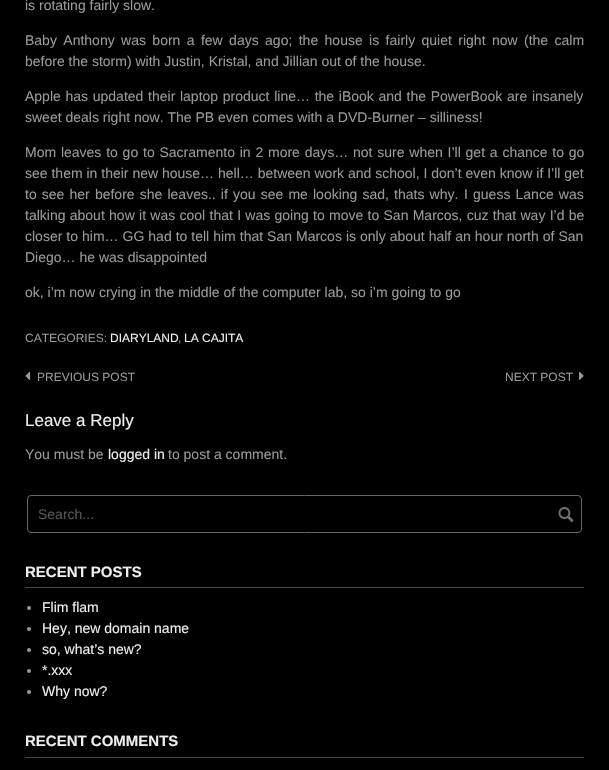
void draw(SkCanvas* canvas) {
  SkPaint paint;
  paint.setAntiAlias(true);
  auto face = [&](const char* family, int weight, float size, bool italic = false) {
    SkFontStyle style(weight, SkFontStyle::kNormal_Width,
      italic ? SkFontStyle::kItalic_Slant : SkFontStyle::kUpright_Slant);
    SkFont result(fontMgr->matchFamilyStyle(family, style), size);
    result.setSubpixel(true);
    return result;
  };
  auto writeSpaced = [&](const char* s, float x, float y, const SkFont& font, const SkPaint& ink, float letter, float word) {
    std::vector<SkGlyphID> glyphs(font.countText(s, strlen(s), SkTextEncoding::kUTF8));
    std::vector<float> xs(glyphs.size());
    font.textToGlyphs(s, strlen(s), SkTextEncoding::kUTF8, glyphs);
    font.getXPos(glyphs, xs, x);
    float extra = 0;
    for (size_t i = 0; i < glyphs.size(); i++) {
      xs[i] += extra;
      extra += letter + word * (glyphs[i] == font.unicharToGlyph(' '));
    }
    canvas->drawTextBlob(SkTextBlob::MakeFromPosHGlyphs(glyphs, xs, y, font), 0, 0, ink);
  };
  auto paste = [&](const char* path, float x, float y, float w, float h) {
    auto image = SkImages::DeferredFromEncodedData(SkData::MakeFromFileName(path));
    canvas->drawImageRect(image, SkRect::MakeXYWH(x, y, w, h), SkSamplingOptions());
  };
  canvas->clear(0xff000000);
  paste("img/1.png", 25, 371, 6, 9);
  paste("img/2.png", 579, 371, 5, 9);
  paint.setStroke(true);
  paint.setStrokeWidth(1);
  paint.setColor(0xff666666);
  canvas->drawRoundRect(SkRect::MakeXYWH(27.5f, 495.5f, 554, 37), 3.5f, 3.5f, paint);
  paste("img/3.png", 558, 507, 16, 16);
  paint.setStroke(false);
  paint.setColor(0xff444444);
  canvas->drawRect(SkRect::MakeXYWH(25, 587, 559, 1), paint);
  paint.setColor(0xff999999);
  canvas->drawCircle(29, 608, 2, paint);
  canvas->drawCircle(29, 629, 2, paint);
  canvas->drawCircle(29, 650, 2, paint);
  canvas->drawCircle(29, 671, 2, paint);
  canvas->drawCircle(29, 692, 2, paint);
  paint.setColor(0xff444444);
  canvas->drawRect(SkRect::MakeXYWH(25, 757, 559, 1), paint);
  auto f0 = face("Liberation Sans", 400, 14);
  paint.setColor(0xff999999);
  canvas->drawString("is rotating fairly slow.", 25, 10, f0, paint);
  writeSpaced("Baby Anthony was born a few days ago; the house is fairly quiet right now (the calm", 25, 45, f0, paint, 0, 2.5f);
  canvas->drawString("before the storm) with Justin, Kristal, and Jillian out of the house.", 25, 66, f0, paint);
  writeSpaced("Apple has updated their laptop product line… the iBook and the PowerBook are insanely", 25, 101, f0, paint, 0, 0.8f);
  canvas->drawString("sweet deals right now. The PB even comes with a DVD-Burner – silliness!", 25, 122, f0, paint);
  writeSpaced("Mom leaves to go to Sacramento in 2 more days… not sure when I’ll get a chance to go", 25, 157, f0, paint, 0, 0.9f);
  canvas->drawString("see them in their new house… hell… between work and school, I don’t even know if I’ll get", 25, 178, f0, paint);
  writeSpaced("to see her before she leaves.. if you see me looking sad, thats why.", 25, 199, f0, paint, 0, 1.25f);
  writeSpaced("I guess Lance was", 464, 199, f0, paint, 0, 1.25f);
  writeSpaced("talking about how it was cool that I was going to move to San Marcos, cuz that way I’d be", 25, 220, f0, paint, 0, 0.4f);
  writeSpaced("closer to him… GG had to tell him that San Marcos is only about half an hour north of San", 25, 241, f0, paint, 0, 0.1f);
  canvas->drawString("Diego… he was disappointed", 25, 262, f0, paint);
  canvas->drawString("ok, i’m now crying in the middle of the computer lab, so i’m going to go", 25, 297, f0, paint);
  auto f1 = face("Liberation Sans", 400, 12);
  canvas->drawString("CATEGORIES:", 25, 342, f1, paint);
  paint.setColor(0xffeeeeee);
  canvas->drawString("DIARYLAND", 110, 342, f1, paint);
  paint.setColor(0xff999999);
  canvas->drawString(",", 178, 342, f1, paint);
  paint.setColor(0xffeeeeee);
  canvas->drawString("LA CAJITA", 184, 342, f1, paint);
  paint.setColor(0xff999999);
  canvas->drawString("PREVIOUS POST", 37, 381, f1, paint);
  canvas->drawString("NEXT POST", 505, 381, f1, paint);
  auto f2 = face("Liberation Sans", 400, 17);
  paint.setColor(0xffeeeeee);
  canvas->drawString("Leave a Reply", 25, 426, f2, paint);
  paint.setColor(0xff999999);
  canvas->drawString("You must be", 25, 459, f0, paint);
  paint.setColor(0xffeeeeee);
  canvas->drawString("logged in", 108, 459, f0, paint);
  paint.setColor(0xff999999);
  canvas->drawString("to post a comment.", 168, 459, f0, paint);
  paint.setColor(0xff555555);
  canvas->drawString("Search...", 38, 519, f0, paint);
  auto f3 = face("Liberation Sans", 700, 15);
  paint.setColor(0xffeeeeee);
  canvas->drawString("RECENT POSTS", 25, 577, f3, paint);
  {
    const struct { const char* s; float x, y; } items[] = {
      {"Flim flam", 42, 612},
      {"Hey, new domain name", 42, 633},
      {"so, what’s new?", 42, 654},
      {"*.xxx", 42, 675},
      {"Why now?", 42, 696},
    };
    for (auto [s, x, y] : items) {
      canvas->drawString(s, x, y, f0, paint);
    }
  }
  canvas->drawString("RECENT COMMENTS", 25, 746, f3, paint);
}
